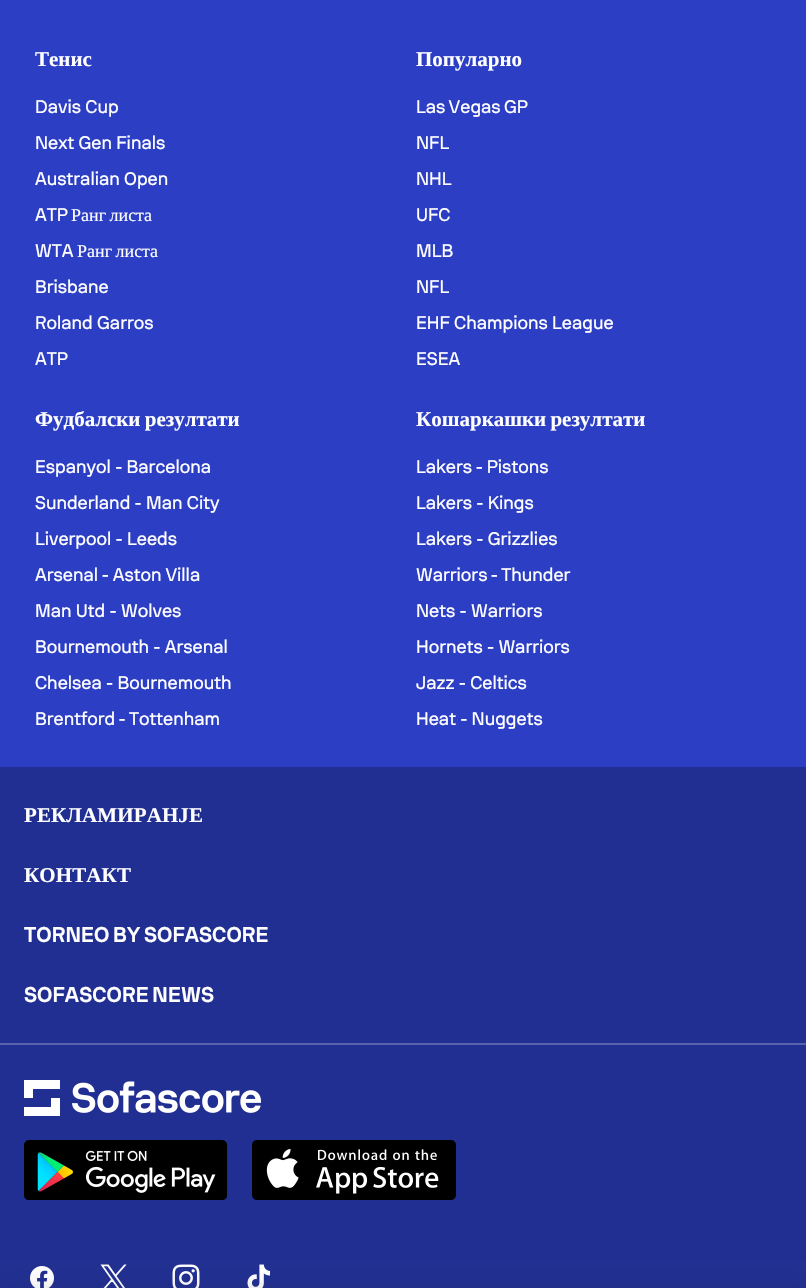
void draw(SkCanvas* canvas) {
  SkPaint paint;
  paint.setAntiAlias(true);
  auto face = [&](const char* family, int weight, float size, bool italic = false) {
    SkFontStyle style(weight, SkFontStyle::kNormal_Width,
      italic ? SkFontStyle::kItalic_Slant : SkFontStyle::kUpright_Slant);
    SkFont result(fontMgr->matchFamilyStyle(family, style), size);
    result.setSubpixel(true);
    return result;
  };
  auto writeSpaced = [&](const char* s, float x, float y, const SkFont& font, const SkPaint& ink, float letter, float word) {
    std::vector<SkGlyphID> glyphs(font.countText(s, strlen(s), SkTextEncoding::kUTF8));
    std::vector<float> xs(glyphs.size());
    font.textToGlyphs(s, strlen(s), SkTextEncoding::kUTF8, glyphs);
    font.getXPos(glyphs, xs, x);
    float extra = 0;
    for (size_t i = 0; i < glyphs.size(); i++) {
      xs[i] += extra;
      extra += letter + word * (glyphs[i] == font.unicharToGlyph(' '));
    }
    canvas->drawTextBlob(SkTextBlob::MakeFromPosHGlyphs(glyphs, xs, y, font), 0, 0, ink);
  };
  auto paste = [&](const char* path, float x, float y, float w, float h) {
    auto image = SkImages::DeferredFromEncodedData(SkData::MakeFromFileName(path));
    canvas->drawImageRect(image, SkRect::MakeXYWH(x, y, w, h), SkSamplingOptions());
  };
  canvas->clear(0xff2c3ec4);
  paint.setColor(0xff212f92);
  canvas->drawRect(SkRect::MakeXYWH(0, 767, 806, 521), paint);
  paint.setColor(0xff5963ad);
  canvas->drawRect(SkRect::MakeXYWH(0, 1043, 806, 2), paint);
  paste("img/1.png", 24, 1080, 237, 36);
  paste("img/2.png", 24, 1140, 204, 60);
  paste("img/3.png", 252, 1140, 204, 60);
  paste("img/4.png", 30, 1266, 24, 22);
  paste("img/5.png", 100, 1264, 27, 24);
  paste("img/6.png", 172, 1264, 28, 24);
  paste("img/7.png", 247, 1264, 23, 24);
  paint.setColor(0x29222226);
  paint.setMaskFilter(SkMaskFilter::MakeBlur(kNormal_SkBlurStyle, 12));
  canvas->drawRect(SkRect::MakeXYWH(-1, 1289, 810, 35), paint);
  paint.setMaskFilter(nullptr);
  auto f0 = face("Liberation Serif", 700, 21);
  paint.setColor(0xffffffff);
  canvas->drawString("Тенис", 35, 66, f0, paint);
  auto f1 = face("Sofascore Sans", 400, 18);
  {
    const struct { const char* s; float x, y; } items[] = {
      {"Davis Cup", 35, 113},
      {"Next Gen Finals", 35, 149},
      {"Australian Open", 35, 185},
      {"ATP", 35, 221},
    };
    for (auto [s, x, y] : items) {
      canvas->drawString(s, x, y, f1, paint);
    }
  }
  auto f2 = face("Liberation Serif", 400, 18);
  writeSpaced("Ранг листа", 71, 221, f2, paint, 0, -1);
  canvas->drawString("WTA", 35, 257, f1, paint);
  writeSpaced("Ранг листа", 77, 257, f2, paint, 0, -1);
  {
    const struct { const char* s; float x, y; } items[] = {
      {"Brisbane", 35, 293},
      {"Roland Garros", 35, 329},
      {"ATP", 35, 365},
    };
    for (auto [s, x, y] : items) {
      canvas->drawString(s, x, y, f1, paint);
    }
  }
  canvas->drawString("Популарно", 416, 66, f0, paint);
  writeSpaced("Las Vegas GP", 416, 113, f1, paint, 0, -1);
  {
    const struct { const char* s; float x, y; } items[] = {
      {"NFL", 416, 149},
      {"NHL", 416, 185},
      {"UFC", 416, 221},
      {"MLB", 416, 257},
      {"NFL", 416, 293},
      {"EHF Champions League", 416, 329},
      {"ESEA", 416, 365},
    };
    for (auto [s, x, y] : items) {
      canvas->drawString(s, x, y, f1, paint);
    }
  }
  writeSpaced("Фудбалски резултати", 35, 426, f0, paint, 0, -1);
  {
    const struct { const char* s; float x, y; } items[] = {
      {"Espanyol - Barcelona", 35, 473},
      {"Sunderland - Man City", 35, 509},
      {"Liverpool - Leeds", 35, 545},
    };
    for (auto [s, x, y] : items) {
      canvas->drawString(s, x, y, f1, paint);
    }
  }
  writeSpaced("Arsenal - Aston Villa", 35, 581, f1, paint, 0, -0.5f);
  {
    const struct { const char* s; float x, y; } items[] = {
      {"Man Utd - Wolves", 35, 617},
      {"Bournemouth - Arsenal", 35, 653},
      {"Chelsea - Bournemouth", 35, 689},
    };
    for (auto [s, x, y] : items) {
      canvas->drawString(s, x, y, f1, paint);
    }
  }
  writeSpaced("Brentford - Tottenham", 35, 725, f1, paint, 0, -1);
  writeSpaced("Кошаркашки резултати", 416, 426, f0, paint, 0, -1);
  writeSpaced("Lakers - Pistons", 416, 473, f1, paint, 0, -0.5f);
  canvas->drawString("Lakers - Kings", 416, 509, f1, paint);
  canvas->drawString("Lakers - Grizzlies", 416, 545, f1, paint);
  writeSpaced("Warriors - Thunder", 416, 581, f1, paint, 0, -1);
  {
    const struct { const char* s; float x, y; } items[] = {
      {"Nets - Warriors", 416, 617},
      {"Hornets - Warriors", 416, 653},
      {"Jazz - Celtics", 416, 689},
      {"Heat - Nuggets", 416, 725},
    };
    for (auto [s, x, y] : items) {
      canvas->drawString(s, x, y, f1, paint);
    }
  }
  writeSpaced("РЕКЛАМИРАНЈЕ", 24, 822, f0, paint, 0.1f, 0);
  writeSpaced("КОНТАКТ", 24, 882, f0, paint, 0.1f, 0);
  auto f3 = face("Sofascore Sans", 700, 21);
  writeSpaced("TORNEO BY SOFASCORE", 24, 942, f3, paint, 0.1f, -1);
  writeSpaced("SOFASCORE NEWS", 24, 1002, f3, paint, 0.1f, -1);
}
